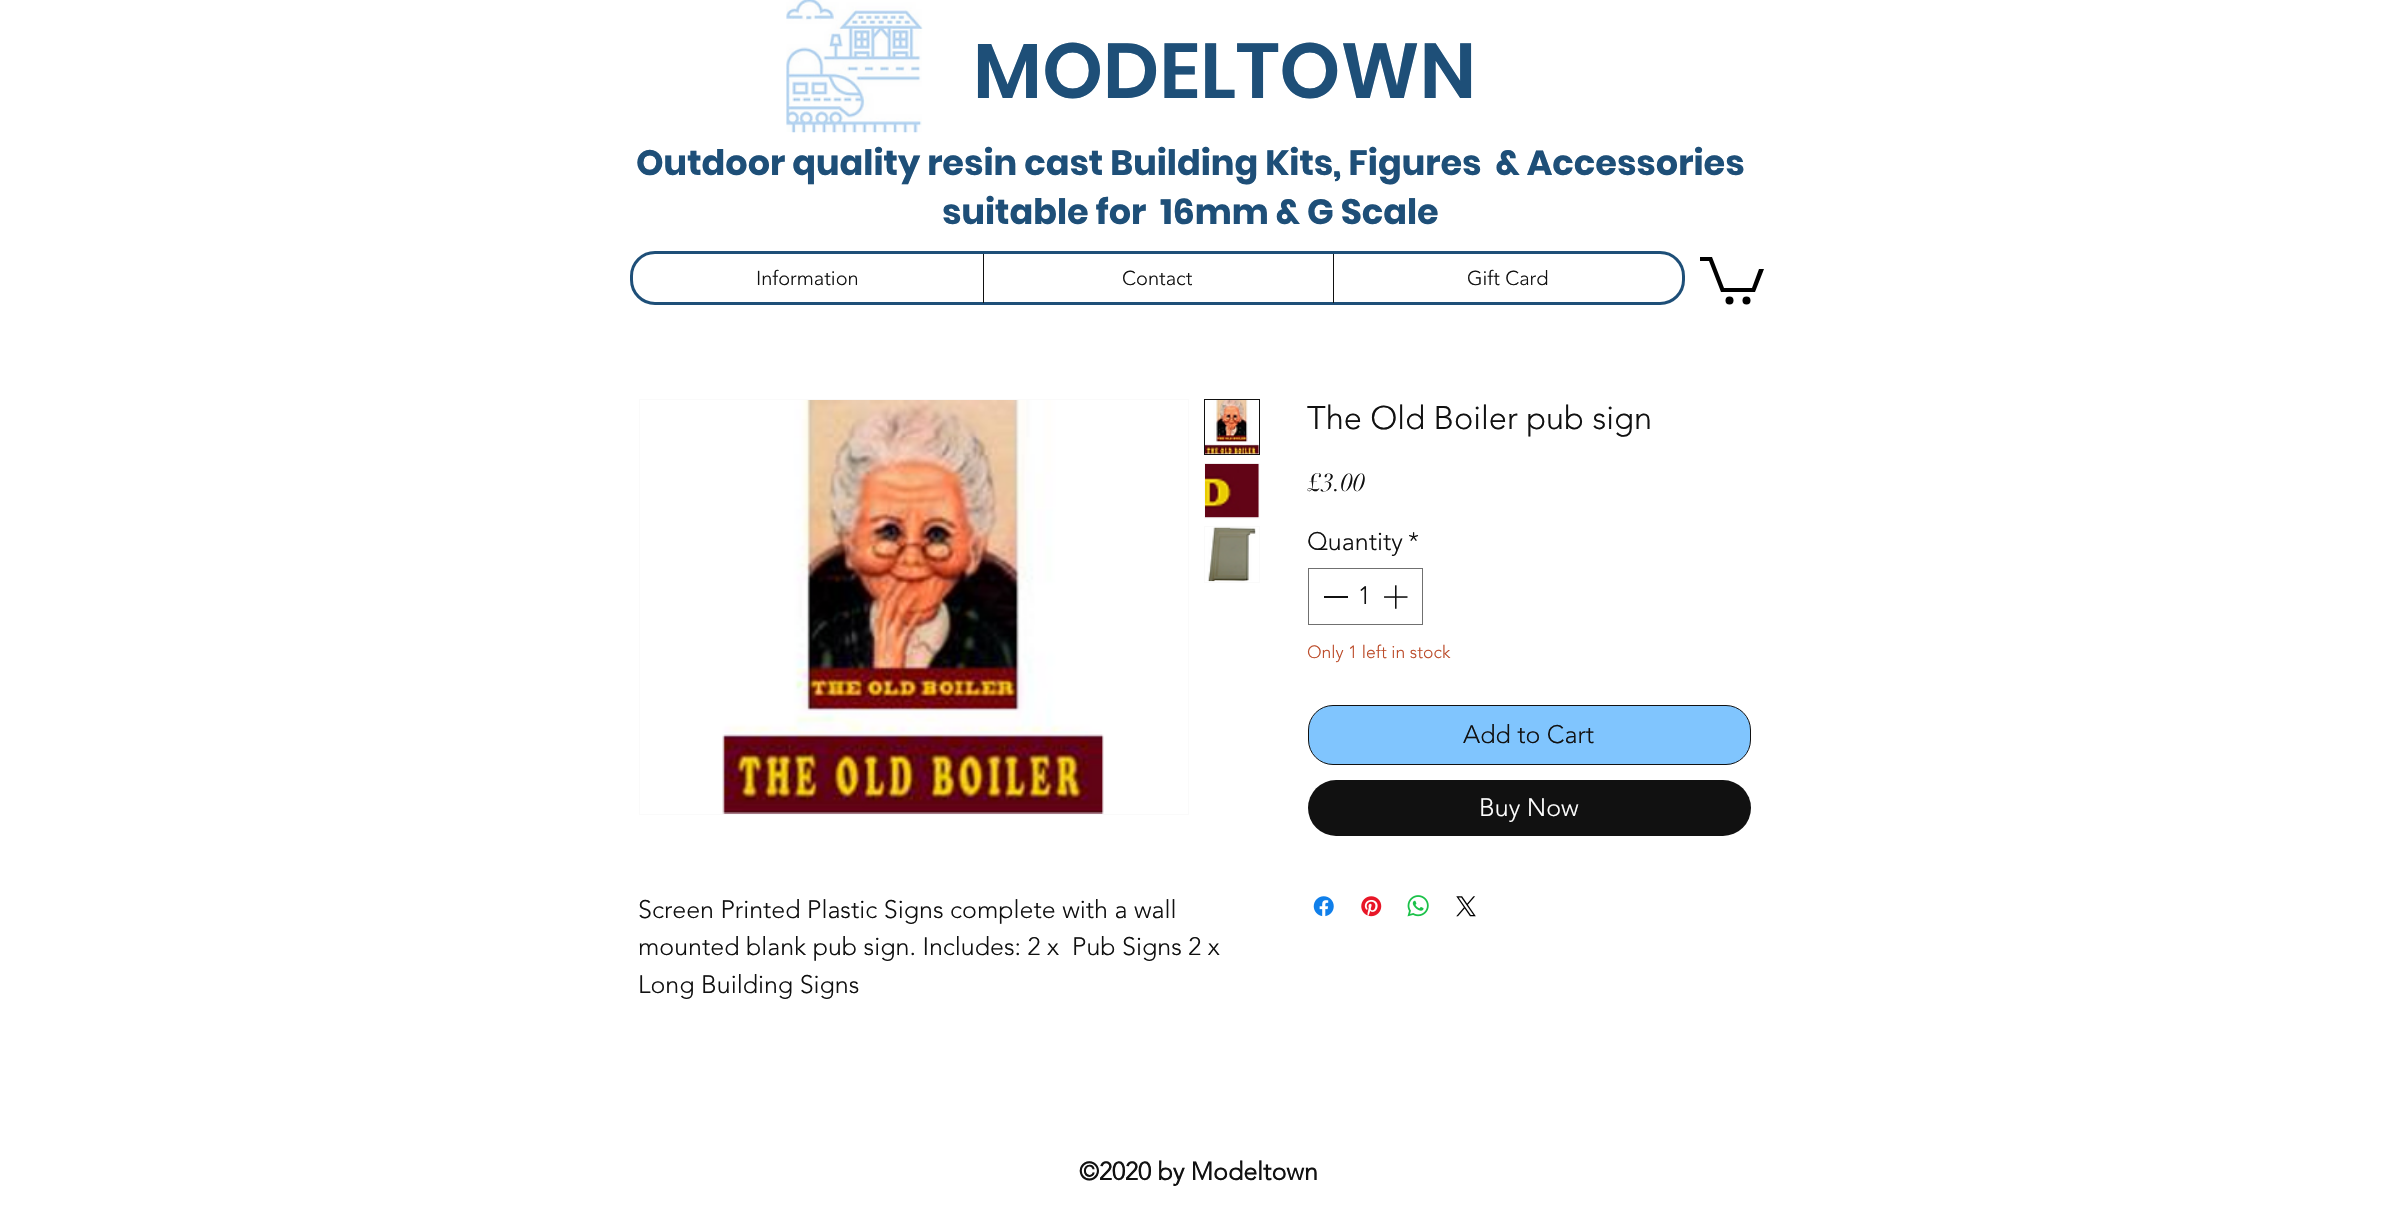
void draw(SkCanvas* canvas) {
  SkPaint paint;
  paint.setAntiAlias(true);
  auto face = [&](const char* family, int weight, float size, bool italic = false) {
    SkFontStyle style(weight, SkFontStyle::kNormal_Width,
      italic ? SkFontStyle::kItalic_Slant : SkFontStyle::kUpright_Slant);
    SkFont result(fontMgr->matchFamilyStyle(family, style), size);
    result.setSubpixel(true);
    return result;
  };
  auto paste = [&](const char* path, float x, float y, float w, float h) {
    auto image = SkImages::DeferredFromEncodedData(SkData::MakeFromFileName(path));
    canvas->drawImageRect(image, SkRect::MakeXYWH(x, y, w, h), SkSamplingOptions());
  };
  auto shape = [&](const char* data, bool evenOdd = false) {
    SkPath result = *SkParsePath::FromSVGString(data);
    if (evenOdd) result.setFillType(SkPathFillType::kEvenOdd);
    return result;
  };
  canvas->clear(0xffffffff);
  paste("img/1.png", 786, 0, 137, 133);
  paint.setStroke(true);
  paint.setStrokeWidth(3);
  paint.setColor(0xff1e4f78);
  canvas->drawRoundRect(SkRect::MakeXYWH(631.5f, 252.5f, 1052, 51), 23.5f, 23.5f, paint);
  paint.setStroke(false);
  paint.setColor(0xff111111);
  canvas->drawRect(SkRect::MakeXYWH(983, 254, 1, 49), paint);
  canvas->drawRect(SkRect::MakeXYWH(1333, 254, 1, 49), paint);
  paint.setColor(0xff000000);
  canvas->drawPath(shape("M1764 269L1755 292H1721L1709 261H1700V257H1712L1724 288H1752L1759 269"), paint);
  canvas->drawCircle(1746.5f, 300.5f, 4, paint);
  canvas->drawCircle(1729.5f, 300.5f, 4, paint);
  paint.setStroke(true);
  paint.setStrokeWidth(1);
  paint.setColor(0xff707070);
  canvas->drawRect(SkRect::MakeXYWH(1308.5f, 568.5f, 114, 56), paint);
  paint.setStroke(false);
  paint.setColor(0xff111111);
  canvas->drawRect(SkRect::MakeXYWH(1324, 596, 24, 2), paint);
  paste("img/2.png", 1384, 585, 24, 24);
  paint.setColor(0xff80c5fe);
  canvas->drawRoundRect(SkRect::MakeXYWH(1308.5f, 705.5f, 442, 59), 24.5f, 24.5f, paint);
  paint.setStroke(true);
  paint.setColor(0xff111111);
  canvas->drawRoundRect(SkRect::MakeXYWH(1308.5f, 705.5f, 442, 59), 24.5f, 24.5f, paint);
  paint.setStroke(false);
  canvas->drawRoundRect(SkRect::MakeXYWH(1308, 780, 443, 56), 28, 28, paint);
  paste("img/3.png", 1313, 896, 21, 21);
  paste("img/4.png", 1361, 896, 21, 21);
  paste("img/5.png", 1407, 895, 22, 22);
  paste("img/6.png", 1456, 896, 20, 21);
  paint.setStroke(true);
  paint.setColor(0xfffafafa);
  canvas->drawRect(SkRect::MakeXYWH(639.5f, 399.5f, 549, 415), paint);
  paste("img/7.png", 722, 400, 382, 414);
  paint.setColor(0xff111111);
  canvas->drawRect(SkRect::MakeXYWH(1204.5f, 399.5f, 55, 55), paint);
  paste("img/8.png", 1205, 400, 54, 54);
  paint.setColor(0xfffafafa);
  canvas->drawRect(SkRect::MakeXYWH(1204.5f, 463.5f, 55, 55), paint);
  paste("img/9.png", 1205, 463, 54, 55);
  canvas->drawRect(SkRect::MakeXYWH(1204.5f, 526.5f, 55, 56), paint);
  paste("img/10.png", 1207, 527, 49, 55);
  auto f0 = face("Poppins", 600, 77.5f);
  paint.setStroke(false);
  paint.setColor(0xff1e4f78);
  canvas->drawString("MODELTOWN", 973, 98, f0, paint);
  auto f1 = face("Poppins", 700, 35);
  canvas->drawString("Outdoor quality resin cast Building Kits, Figures  & Accessories", 636, 175, f1, paint);
  canvas->drawString("suitable for  16mm & G Scale", 942, 224, f1, paint);
  auto f2 = face("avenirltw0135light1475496", 300, 20);
  paint.setColor(0xff111111);
  {
    const struct { const char* s; float x, y; } items[] = {
      {"Information", 756, 285},
      {"Contact", 1122, 285},
      {"Gift Card", 1467, 285},
    };
    for (auto [s, x, y] : items) {
      canvas->drawString(s, x, y, f2, paint);
    }
  }
  auto f3 = face("avenirltw0135light1475496", 300, 32.5f);
  canvas->drawString("The Old Boiler pub sign", 1307, 429, f3, paint);
  auto f4 = face("didot", 400, 25);
  canvas->drawString("£3.00", 1307, 491, f4, paint);
  auto f5 = face("avenirltw0135light1475496", 300, 25);
  {
    const struct { const char* s; float x, y; } items[] = {
      {"Quantity", 1307, 550},
      {"*", 1408, 550},
      {"1", 1358, 604},
    };
    for (auto [s, x, y] : items) {
      canvas->drawString(s, x, y, f5, paint);
    }
  }
  auto f6 = face("avenirltw0135light1475496", 300, 17.5f);
  paint.setColor(0xffbc4c2a);
  canvas->drawString("Only 1 left in stock", 1307, 658, f6, paint);
  paint.setColor(0xff111111);
  canvas->drawString("Add to Cart", 1463, 743, f5, paint);
  paint.setColor(0xffffffff);
  canvas->drawString("Buy Now", 1479, 816, f5, paint);
  paint.setColor(0xff111111);
  {
    const struct { const char* s; float x, y; } items[] = {
      {"Screen Printed Plastic Signs complete with a wall", 638, 918},
      {"mounted blank pub sign. Includes: 2 x  Pub Signs 2 x", 638, 955},
      {"Long Building Signs", 638, 993},
    };
    for (auto [s, x, y] : items) {
      canvas->drawString(s, x, y, f5, paint);
    }
  }
  auto f7 = face("avenirltw0135light1475496", 700, 25);
  canvas->drawString("©2020 by Modeltown", 1079, 1180, f7, paint);
}
